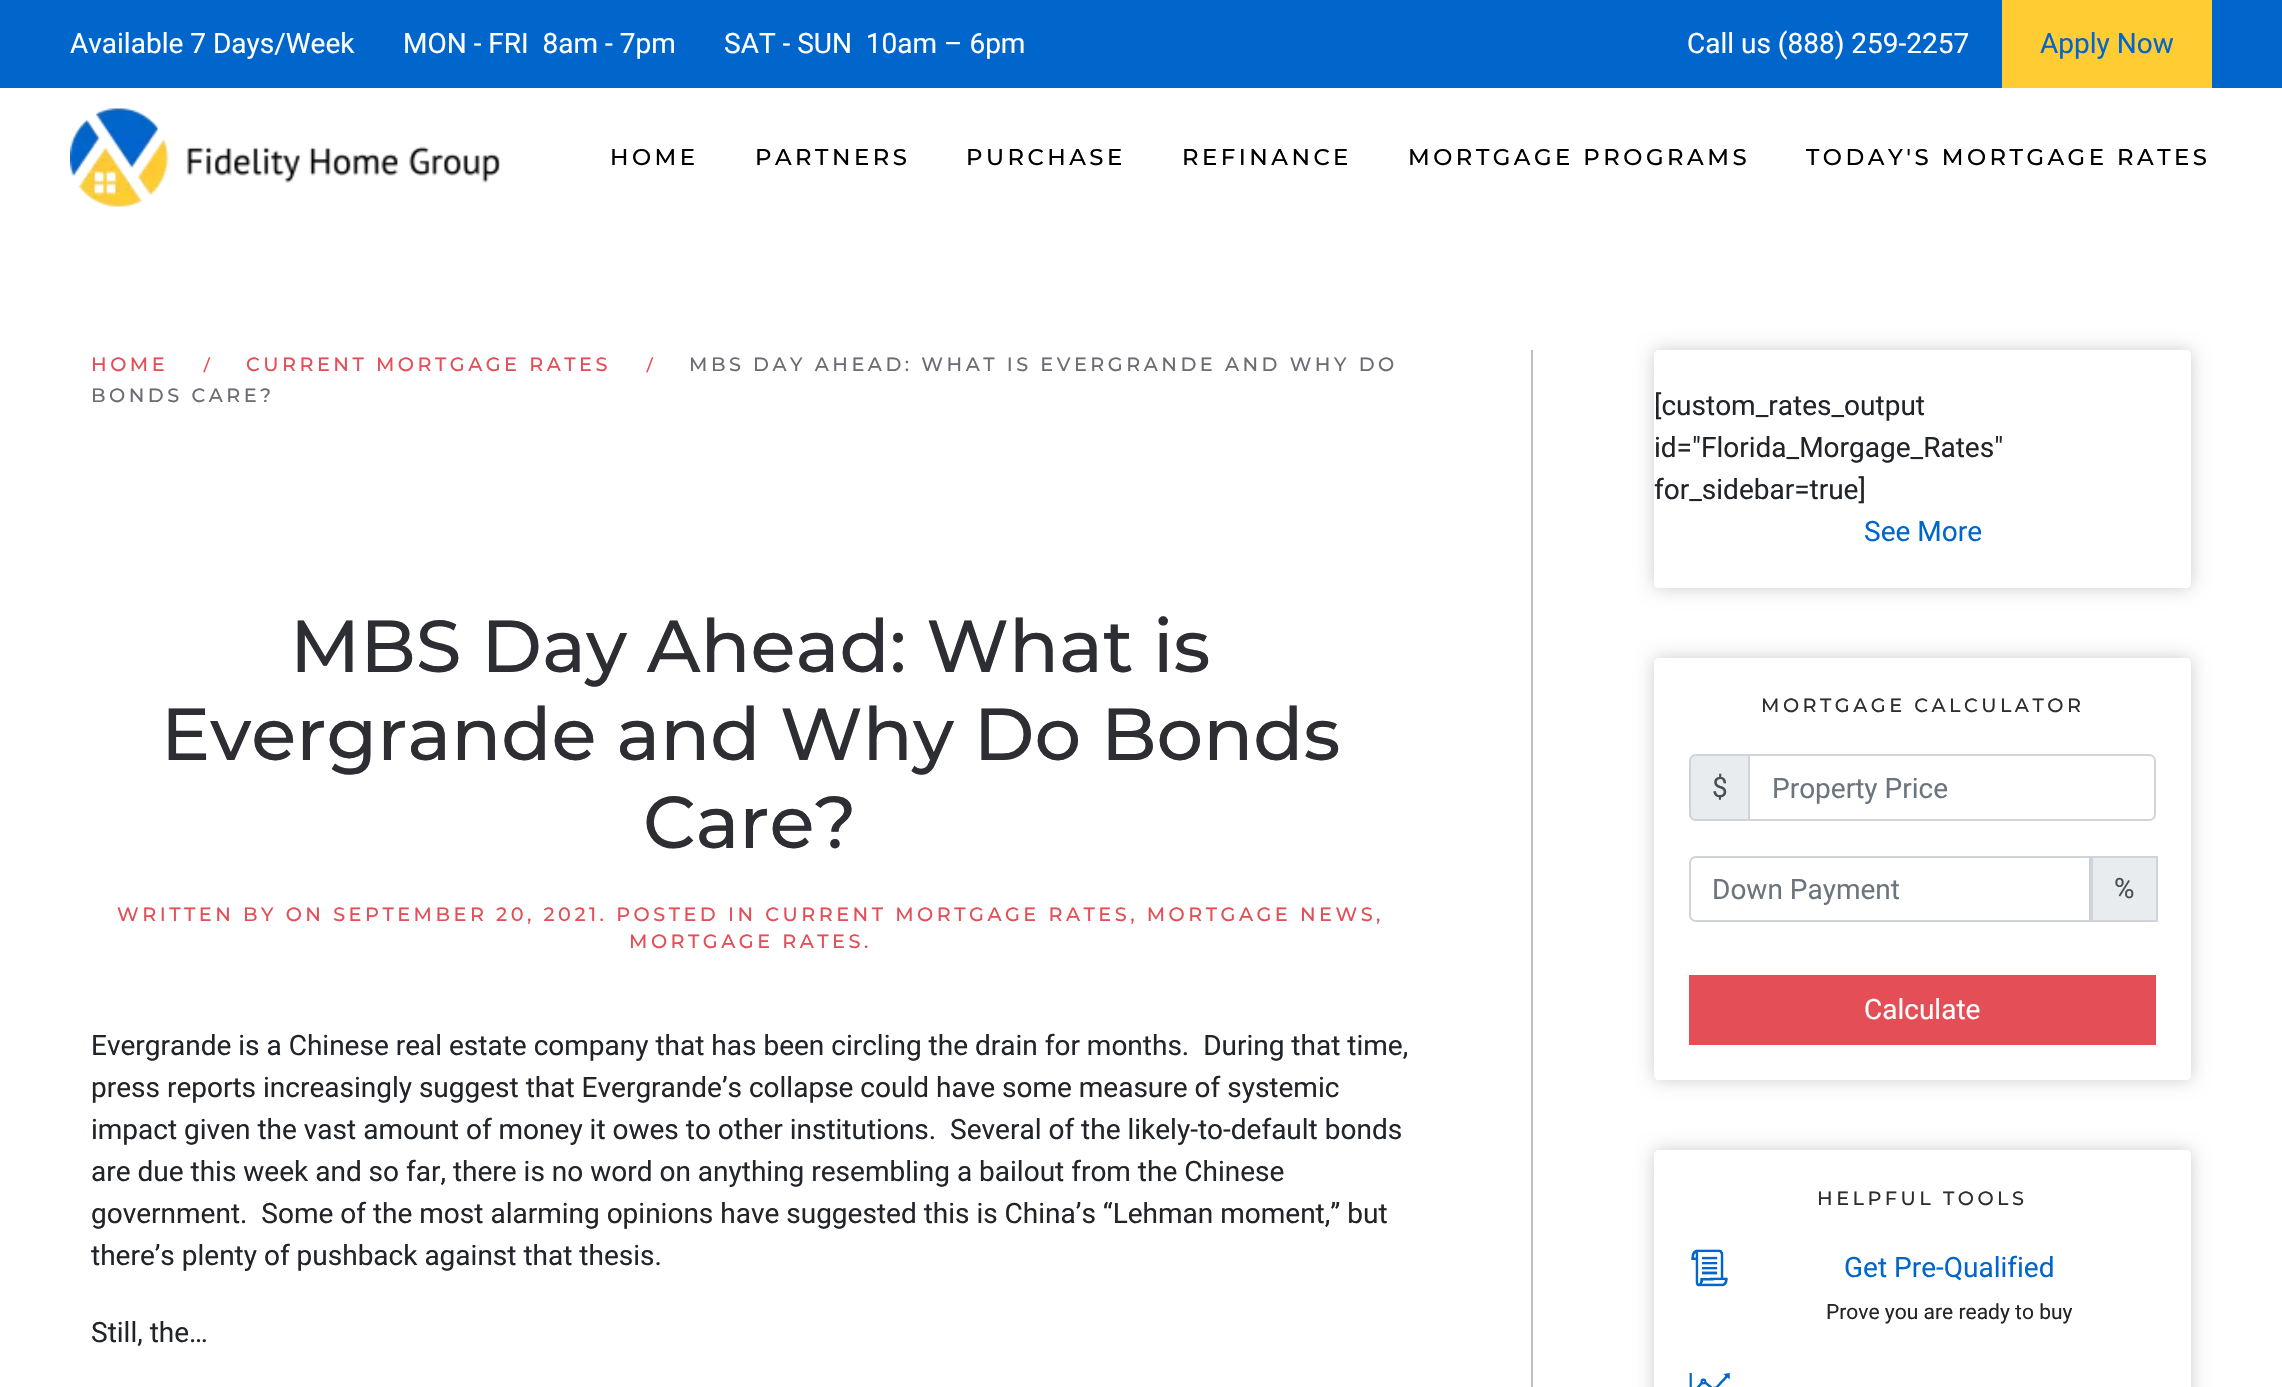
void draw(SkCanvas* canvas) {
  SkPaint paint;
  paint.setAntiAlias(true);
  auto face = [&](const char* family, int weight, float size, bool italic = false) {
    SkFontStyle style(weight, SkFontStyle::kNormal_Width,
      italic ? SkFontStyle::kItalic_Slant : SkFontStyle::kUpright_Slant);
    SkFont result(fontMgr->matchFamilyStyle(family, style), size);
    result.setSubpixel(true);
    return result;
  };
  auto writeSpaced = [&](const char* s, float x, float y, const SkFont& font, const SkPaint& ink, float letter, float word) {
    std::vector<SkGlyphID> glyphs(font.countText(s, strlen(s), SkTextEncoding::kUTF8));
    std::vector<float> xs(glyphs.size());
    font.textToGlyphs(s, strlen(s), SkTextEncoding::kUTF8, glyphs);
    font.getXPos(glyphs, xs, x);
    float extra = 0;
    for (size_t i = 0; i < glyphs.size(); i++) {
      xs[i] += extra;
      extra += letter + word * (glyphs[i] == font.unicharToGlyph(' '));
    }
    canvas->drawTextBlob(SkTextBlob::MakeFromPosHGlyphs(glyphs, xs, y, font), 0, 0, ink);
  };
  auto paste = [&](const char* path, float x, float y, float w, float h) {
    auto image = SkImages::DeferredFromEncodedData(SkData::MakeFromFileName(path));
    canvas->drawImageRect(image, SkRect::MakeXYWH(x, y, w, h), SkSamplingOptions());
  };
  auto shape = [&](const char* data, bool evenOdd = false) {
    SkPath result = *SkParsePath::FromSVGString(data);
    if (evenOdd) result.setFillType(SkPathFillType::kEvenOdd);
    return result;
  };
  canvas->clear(0xffffffff);
  paint.setColor(0xff0066cc);
  canvas->drawRect(SkRect::MakeXYWH(0, 0, 2282, 88), paint);
  paint.setColor(0xffffcc33);
  canvas->drawRect(SkRect::MakeXYWH(2002, 0, 210, 88), paint);
  paste("img/1.png", 70, 108, 431, 99);
  paint.setColor(0xffc0bfbf);
  canvas->drawRect(SkRect::MakeXYWH(1531, 350, 2, 1037), paint);
  canvas->save();
  canvas->clipPath(shape("M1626 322H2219V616H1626ZM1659 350H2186C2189 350 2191 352 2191 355V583C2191 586 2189 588 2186 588H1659C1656 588 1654 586 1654 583V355C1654 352 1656 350 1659 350Z", true), true);
  paint.setColor(0x33000000);
  paint.setMaskFilter(SkMaskFilter::MakeBlur(kNormal_SkBlurStyle, 9));
  canvas->drawRoundRect(SkRect::MakeXYWH(1654, 350, 537, 238), 5, 5, paint);
  paint.setMaskFilter(nullptr);
  canvas->restore();
  canvas->save();
  canvas->clipPath(shape("M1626 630H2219V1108H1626ZM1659 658H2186C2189 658 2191 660 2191 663V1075C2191 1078 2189 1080 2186 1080H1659C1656 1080 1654 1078 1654 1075V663C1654 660 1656 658 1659 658Z", true), true);
  paint.setMaskFilter(SkMaskFilter::MakeBlur(kNormal_SkBlurStyle, 9));
  canvas->drawRoundRect(SkRect::MakeXYWH(1654, 658, 537, 422), 5, 5, paint);
  paint.setMaskFilter(nullptr);
  canvas->restore();
  paint.setColor(0xffe9ecef);
  canvas->drawPath(shape("M1696 755H1749V820H1696C1692.5 820 1690 817.5 1690 814V761C1690 757.5 1692.5 755 1696 755Z"), paint);
  paint.setStroke(true);
  paint.setStrokeWidth(2);
  paint.setColor(0xffced4da);
  canvas->drawPath(shape("M1696 755H1749V820H1696C1692.5 820 1690 817.5 1690 814V761C1690 757.5 1692.5 755 1696 755Z"), paint);
  canvas->drawPath(shape("M1749 755H2149C2152.5 755 2155 757.5 2155 761V814C2155 817.5 2152.5 820 2149 820H1749Z"), paint);
  canvas->drawPath(shape("M1696 857H2090V921H1696C1692.5 921 1690 918.5 1690 915V863C1690 859.5 1692.5 857 1696 857Z"), paint);
  paint.setStroke(false);
  paint.setColor(0xffe9ecef);
  canvas->drawRect(SkRect::MakeXYWH(2092, 857, 65, 64), paint);
  paint.setStroke(true);
  paint.setColor(0xffced4da);
  canvas->drawRect(SkRect::MakeXYWH(2092, 857, 65, 64), paint);
  paint.setStroke(false);
  paint.setColor(0xffe44e56);
  canvas->drawRect(SkRect::MakeXYWH(1689, 975, 467, 70), paint);
  canvas->save();
  canvas->clipPath(shape("M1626 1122H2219V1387H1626ZM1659 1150H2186C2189 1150 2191 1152 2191 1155V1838C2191 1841 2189 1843 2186 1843H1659C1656 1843 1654 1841 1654 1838V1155C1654 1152 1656 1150 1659 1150Z", true), true);
  paint.setColor(0x33000000);
  paint.setMaskFilter(SkMaskFilter::MakeBlur(kNormal_SkBlurStyle, 9));
  canvas->drawRoundRect(SkRect::MakeXYWH(1654, 1150, 537, 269), 5, 5, paint);
  paint.setMaskFilter(nullptr);
  canvas->restore();
  paste("img/2.png", 1691, 1249, 37, 38);
  paste("img/3.png", 1689, 1373, 41, 14);
  auto f0 = face("Roboto", 400, 28);
  paint.setColor(0xffffffff);
  {
    const struct { const char* s; float x, y; } items[] = {
      {"Available 7 Days/Week", 70, 53},
      {"MON - FRI  8am - 7pm", 403, 53},
      {"SAT - SUN  10am – 6pm", 724, 53},
      {"Call us (888) 259-2257", 1687, 53},
    };
    for (auto [s, x, y] : items) {
      canvas->drawString(s, x, y, f0, paint);
    }
  }
  paint.setColor(0xff0066cc);
  canvas->drawString("Apply Now", 2040, 53, f0, paint);
  auto f1 = face("Montserrat", 100, 22.75f);
  paint.setColor(0xff000000);
  {
    const struct { const char* s; float x, y; } items[] = {
      {"HOME", 610, 165},
      {"PARTNERS", 755, 165},
      {"PURCHASE", 966, 165},
      {"REFINANCE", 1182, 165},
      {"MORTGAGE PROGRAMS", 1408, 165},
      {"TODAY'S MORTGAGE RATES", 1806, 165},
    };
    for (auto [s, x, y] : items) {
      writeSpaced(s, x, y, f1, paint, 3.5f, 0);
    }
  }
  auto f2 = face("Montserrat", 100, 19.25f);
  paint.setColor(0xffe44e56);
  writeSpaced("HOME", 91, 371, f2, paint, 3.5f, 0);
  auto f3 = face("Roboto", 400, 19.25f);
  canvas->drawString("/", 646, 371, f3, paint);
  paint.setColor(0xff6c6d74);
  writeSpaced("MBS DAY AHEAD: WHAT IS EVERGRANDE AND WHY DO", 689, 371, f2, paint, 3.5f, 0);
  writeSpaced("BONDS CARE?", 91, 402, f2, paint, 3.5f, 0);
  paint.setColor(0xffe44e56);
  canvas->drawString("/", 203, 371, f3, paint);
  writeSpaced("CURRENT MORTGAGE RATES", 246, 371, f2, paint, 3.5f, 0);
  auto f4 = face("Montserrat", 100, 73.5f);
  paint.setColor(0xff2d2e33);
  {
    const struct { const char* s; float x, y; } items[] = {
      {"MBS Day Ahead: What is", 290, 672},
      {"Evergrande and Why Do Bonds", 161, 760},
      {"Care?", 643, 848},
    };
    for (auto [s, x, y] : items) {
      canvas->drawString(s, x, y, f4, paint);
    }
  }
  paint.setColor(0xffe44e56);
  writeSpaced("WRITTEN BY ON SEPTEMBER 20, 2021. POSTED IN CURRENT MORTGAGE RATES, MORTGAGE NEWS,", 117, 921, f2, paint, 3.5f, 0);
  writeSpaced("MORTGAGE RATES.", 629, 948, f2, paint, 3.5f, 0);
  paint.setColor(0xff212529);
  {
    const struct { const char* s; float x, y; } items[] = {
      {"Evergrande is a Chinese real estate company that has been circling the drain for months.  During that time,", 91, 1055},
      {"press reports increasingly suggest that Evergrande’s collapse could have some measure of systemic", 91, 1097},
      {"impact given the vast amount of money it owes to other institutions.  Several of the likely-to-default bonds", 91, 1139},
      {"are due this week and so far, there is no word on anything resembling a bailout from the Chinese", 91, 1181},
      {"government.  Some of the most alarming opinions have suggested this is China’s “Lehman moment,” but", 91, 1223},
      {"there’s plenty of pushback against that thesis.", 91, 1265},
      {"Still, the…", 91, 1342},
      {"[custom_rates_output", 1654, 415},
      {"id=\"Florida_Morgage_Rates\"", 1654, 457},
      {"for_sidebar=true]", 1654, 499},
    };
    for (auto [s, x, y] : items) {
      canvas->drawString(s, x, y, f0, paint);
    }
  }
  paint.setColor(0xff0066cc);
  canvas->drawString("See More", 1864, 541, f0, paint);
  paint.setColor(0xff2d2e33);
  writeSpaced("MORTGAGE CALCULATOR", 1761, 712, f2, paint, 3.5f, 0);
  paint.setColor(0xff495057);
  canvas->drawString("$", 1712, 797, f0, paint);
  paint.setColor(0xff6c757d);
  canvas->drawString("Property Price", 1772, 798, f0, paint);
  canvas->drawString("Down Payment", 1712, 899, f0, paint);
  paint.setColor(0xff495057);
  canvas->drawString("%", 2114, 898, f0, paint);
  paint.setColor(0xffffffff);
  canvas->drawString("Calculate", 1864, 1019, f0, paint);
  paint.setColor(0xff2d2e33);
  writeSpaced("HELPFUL TOOLS", 1817, 1205, f2, paint, 3.5f, 0);
  paint.setColor(0xff0066cc);
  canvas->drawString("Get Pre-Qualified", 1844, 1277, f0, paint);
  auto f5 = face("Roboto", 400, 21);
  paint.setColor(0xff212529);
  canvas->drawString("Prove you are ready to buy", 1826, 1319, f5, paint);
}
